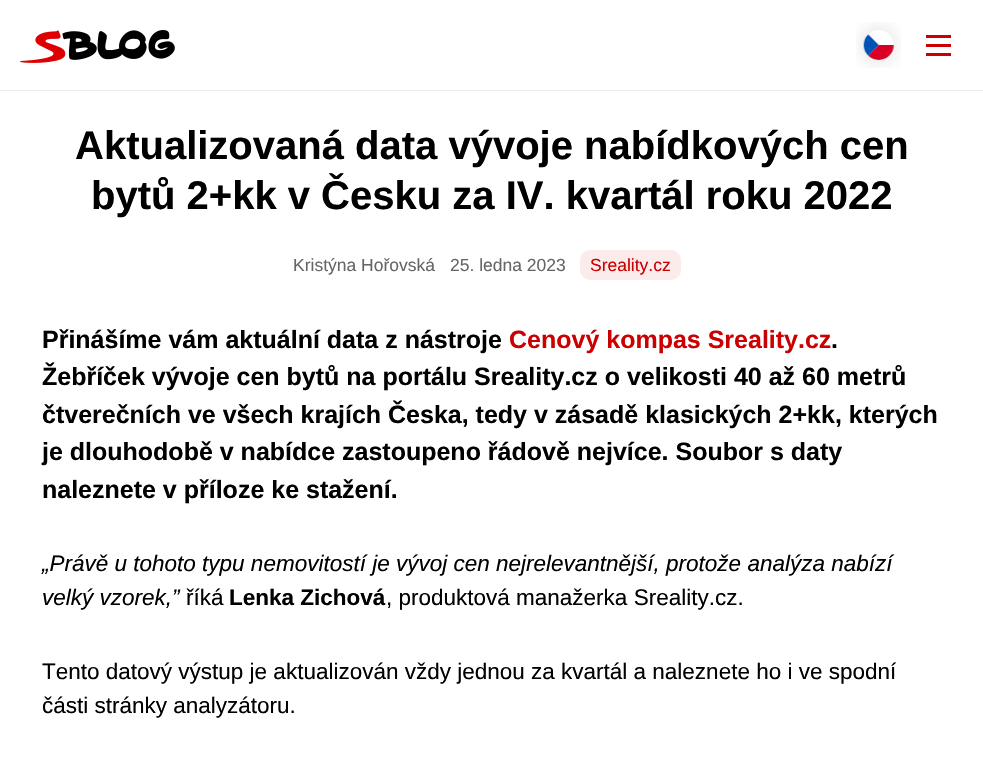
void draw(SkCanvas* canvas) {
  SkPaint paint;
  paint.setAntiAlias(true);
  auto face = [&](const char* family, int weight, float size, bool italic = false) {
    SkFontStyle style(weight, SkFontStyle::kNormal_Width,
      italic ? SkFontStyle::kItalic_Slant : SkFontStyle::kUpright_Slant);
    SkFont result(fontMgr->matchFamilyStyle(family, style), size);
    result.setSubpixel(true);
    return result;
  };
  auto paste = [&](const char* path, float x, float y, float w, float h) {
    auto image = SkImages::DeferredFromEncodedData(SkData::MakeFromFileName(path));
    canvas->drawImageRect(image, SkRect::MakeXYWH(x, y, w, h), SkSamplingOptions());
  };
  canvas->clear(0xffffffff);
  paint.setColor(0xffebebeb);
  canvas->drawRect(SkRect::MakeXYWH(0, 90, 983, 1), paint);
  paste("img/1.png", 20, 30, 155, 33);
  paste("img/2.png", 856, 22, 45, 46);
  {
    const struct { float x, y, w, h; SkColor color; } items[] = {
      {926, 35, 25, 3, 0xffcc0000},
      {926, 44, 25, 3, 0xffcc0000},
      {926, 53, 25, 3, 0xffcc0000},
    };
    for (auto [x, y, w, h, color] : items) {
      paint.setColor(color);
      canvas->drawRect(SkRect::MakeXYWH(x, y, w, h), paint);
    }
  }
  paint.setColor(0xfffbebeb);
  canvas->drawRoundRect(SkRect::MakeXYWH(580, 250, 101, 30), 10, 10, paint);
  auto f0 = face("Liberation Sans", 700, 40);
  paint.setColor(0xff000000);
  canvas->drawString("Aktualizovaná data vývoje nabídkových cen", 75, 159, f0, paint);
  canvas->drawString("bytů 2+kk v Česku za IV. kvartál roku 2022", 91, 209, f0, paint);
  auto f1 = face("Liberation Sans", 400, 17.5f);
  paint.setColor(0xff666666);
  canvas->drawString("Kristýna Hořovská", 293, 271, f1, paint);
  canvas->drawString("25. ledna 2023", 450, 271, f1, paint);
  paint.setColor(0xffcc0000);
  canvas->drawString("Sreality.cz", 590, 271, f1, paint);
  auto f2 = face("Liberation Sans", 700, 25);
  paint.setColor(0xff000000);
  canvas->drawString("Přinášíme vám aktuální data z nástroje", 42, 348, f2, paint);
  paint.setColor(0xffcc0000);
  canvas->drawString("Cenový kompas Sreality.cz", 509, 348, f2, paint);
  paint.setColor(0xff000000);
  {
    const struct { const char* s; float x, y; } items[] = {
      {".", 831, 348},
      {"Žebříček vývoje cen bytů na portálu Sreality.cz o velikosti 40 až 60 metrů", 42, 385},
      {"čtverečních ve všech krajích Česka, tedy v zásadě klasických 2+kk, kterých", 42, 423},
      {"je dlouhodobě v nabídce zastoupeno řádově nejvíce. Soubor s daty", 42, 460},
      {"naleznete v příloze ke stažení.", 42, 498},
    };
    for (auto [s, x, y] : items) {
      canvas->drawString(s, x, y, f2, paint);
    }
  }
  auto f3 = face("Liberation Sans", 400, 22.5f, true);
  canvas->drawString("„Právě u tohoto typu nemovitostí je vývoj cen nejrelevantnější, protože analýza nabízí", 42, 571, f3, paint);
  canvas->drawString("velký vzorek,”", 42, 605, f3, paint);
  auto f4 = face("Liberation Sans", 400, 22.5f);
  canvas->drawString("říká", 186, 605, f4, paint);
  auto f5 = face("Liberation Sans", 700, 22.5f);
  canvas->drawString("Lenka Zichová", 229, 605, f5, paint);
  {
    const struct { const char* s; float x, y; } items[] = {
      {", produktová manažerka Sreality.cz.", 386, 605},
      {"Tento datový výstup je aktualizován vždy jednou za kvartál a naleznete ho i ve spodní", 42, 679},
      {"části stránky analyzátoru.", 42, 713},
    };
    for (auto [s, x, y] : items) {
      canvas->drawString(s, x, y, f4, paint);
    }
  }
}
